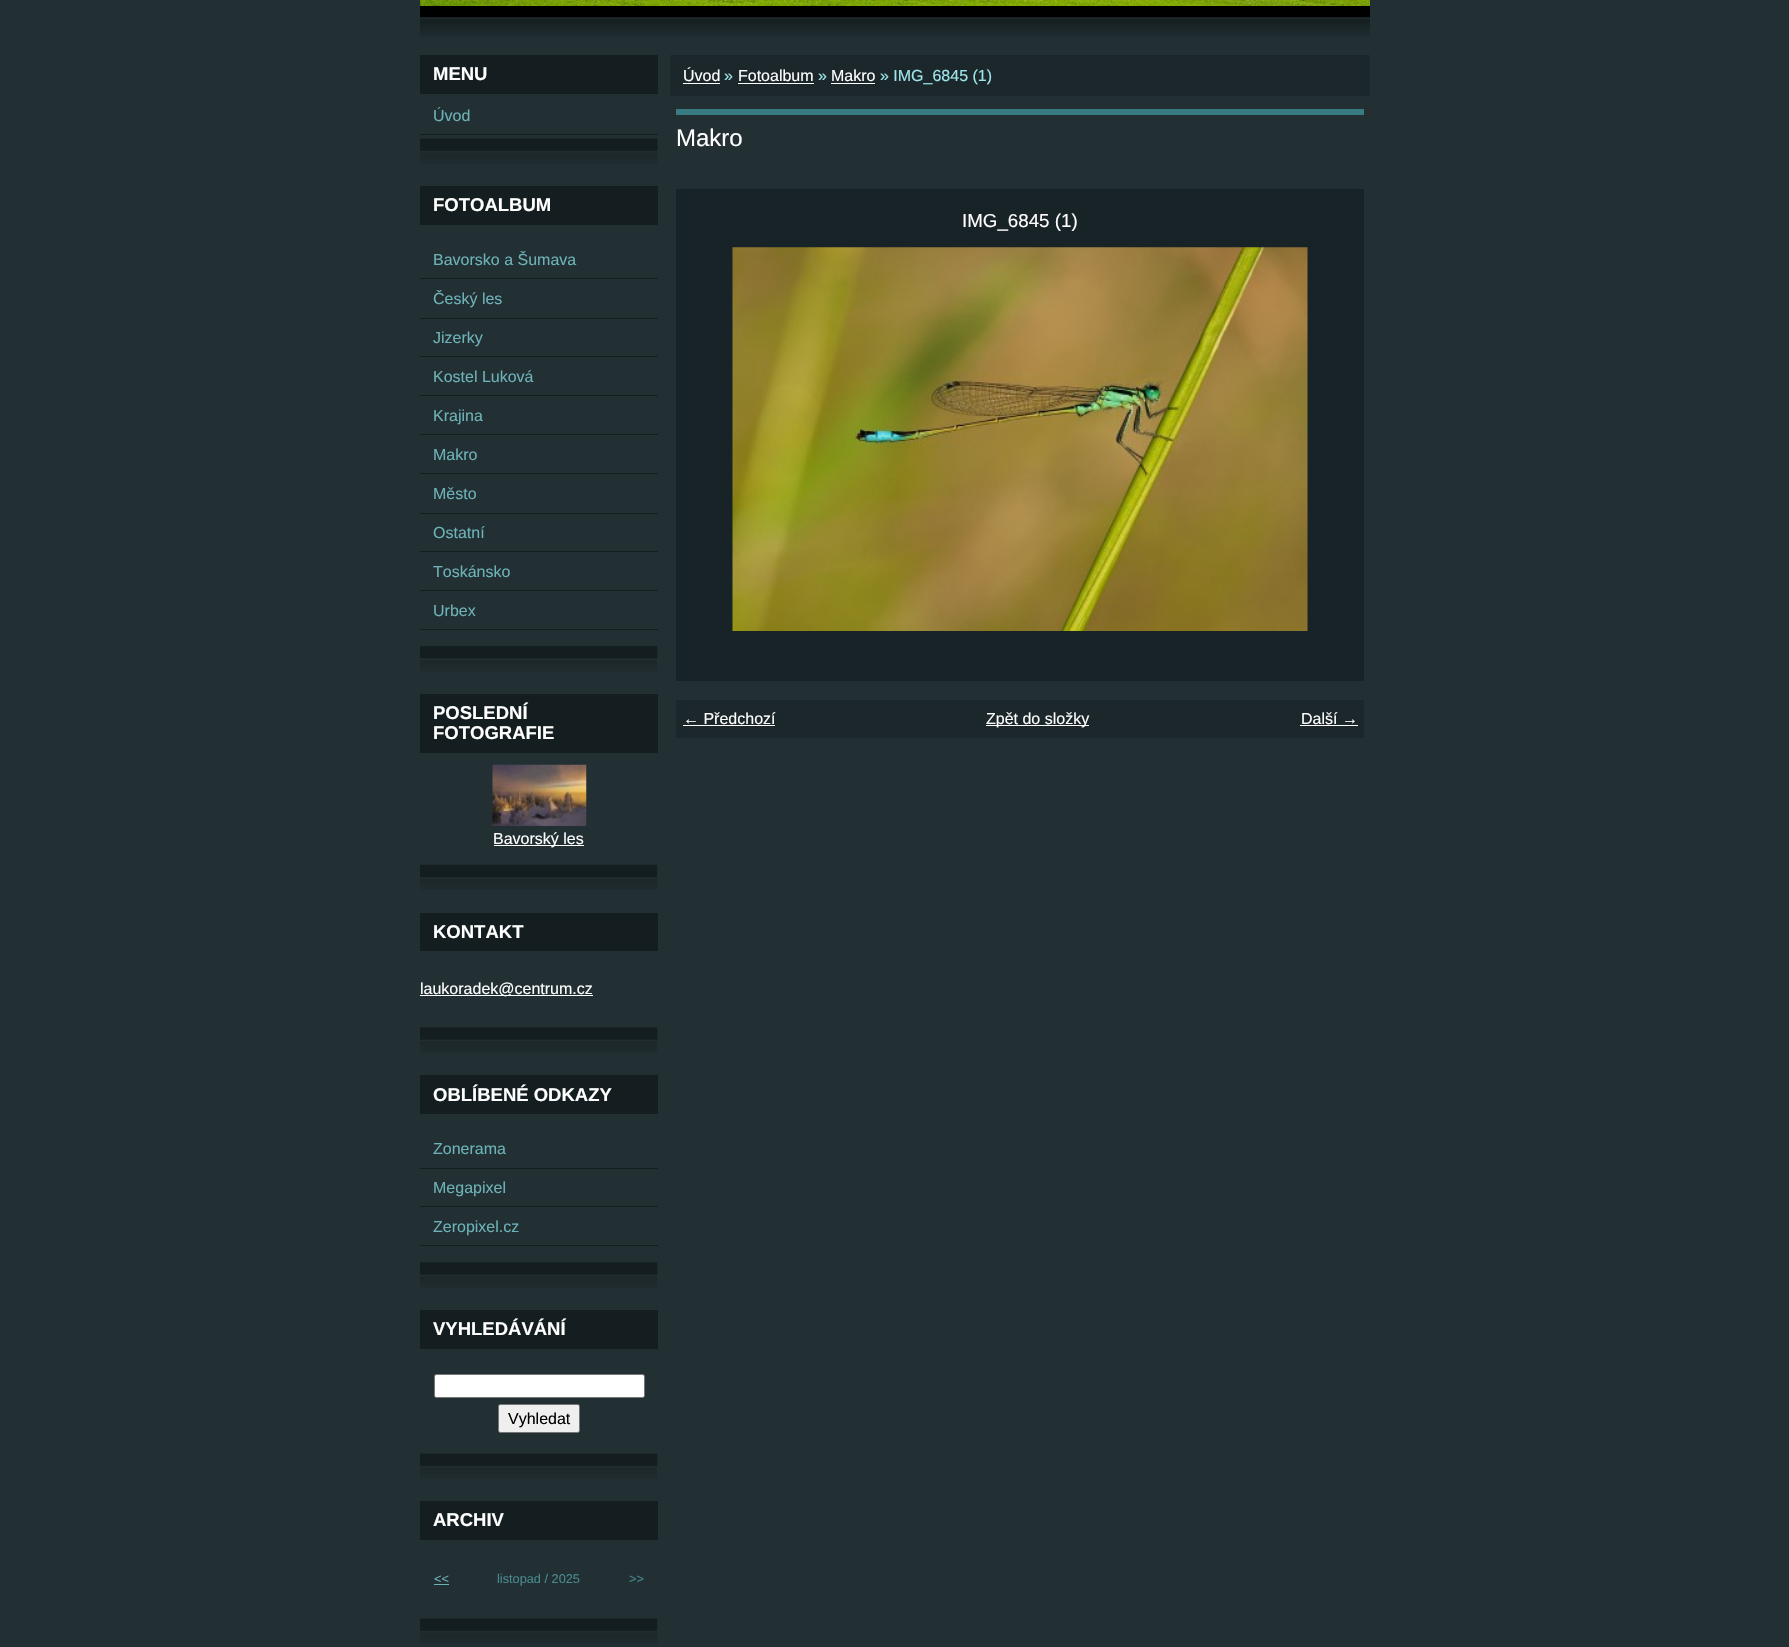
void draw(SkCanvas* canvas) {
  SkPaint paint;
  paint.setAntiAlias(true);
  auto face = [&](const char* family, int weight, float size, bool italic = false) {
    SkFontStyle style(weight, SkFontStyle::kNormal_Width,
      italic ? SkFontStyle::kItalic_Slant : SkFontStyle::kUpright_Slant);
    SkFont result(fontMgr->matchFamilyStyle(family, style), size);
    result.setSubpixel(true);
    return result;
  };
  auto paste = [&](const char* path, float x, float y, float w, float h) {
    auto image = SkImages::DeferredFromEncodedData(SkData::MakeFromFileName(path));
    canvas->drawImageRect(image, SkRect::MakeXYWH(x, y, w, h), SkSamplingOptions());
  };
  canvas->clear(0xff223034);
  paste("img/1.png", 420, 6, 950, 31);
  paste("img/2.png", 420, 0, 950, 6);
  paint.setColor(0xff141e21);
  canvas->drawRect(SkRect::MakeXYWH(420, 55, 238, 39), paint);
  paste("img/3.png", 420, 138, 238, 26);
  canvas->drawRect(SkRect::MakeXYWH(420, 134, 238, 1), paint);
  paste("img/4.png", 420, 646, 238, 26);
  {
    const struct { float x, y, w, h; SkColor color; } items[] = {
      {420, 186, 238, 39, 0xff141e21},
      {420, 278, 238, 1, 0xff141e21},
      {420, 318, 238, 1, 0xff141e21},
      {420, 356, 238, 1, 0xff141e21},
      {420, 395, 238, 1, 0xff141e21},
      {420, 434, 238, 1, 0xff141e21},
      {420, 473, 238, 1, 0xff141e21},
      {420, 513, 238, 1, 0xff141e21},
      {420, 551, 238, 1, 0xff141e21},
      {420, 590, 238, 1, 0xff141e21},
      {420, 629, 238, 1, 0xff141e21},
    };
    for (auto [x, y, w, h, color] : items) {
      paint.setColor(color);
      canvas->drawRect(SkRect::MakeXYWH(x, y, w, h), paint);
    }
  }
  paste("img/5.png", 420, 864, 238, 26);
  canvas->drawRect(SkRect::MakeXYWH(420, 694, 238, 59), paint);
  paste("img/6.png", 492, 764, 95, 62);
  paint.setColor(0xffffffff);
  canvas->drawRect(SkRect::MakeXYWH(494, 845, 90, 1), paint);
  paste("img/7.png", 420, 1027, 238, 26);
  paint.setColor(0xff141e21);
  canvas->drawRect(SkRect::MakeXYWH(420, 913, 238, 38), paint);
  paint.setColor(0xffffffff);
  canvas->drawRect(SkRect::MakeXYWH(420, 995, 173, 1), paint);
  paste("img/7.png", 420, 1262, 238, 26);
  {
    const struct { float x, y, w, h; SkColor color; } items[] = {
      {420, 1075, 238, 39, 0xff141e21},
      {420, 1168, 238, 1, 0xff141e21},
      {420, 1206, 238, 1, 0xff141e21},
      {420, 1245, 238, 1, 0xff141e21},
    };
    for (auto [x, y, w, h, color] : items) {
      paint.setColor(color);
      canvas->drawRect(SkRect::MakeXYWH(x, y, w, h), paint);
    }
  }
  paste("img/8.png", 420, 1453, 238, 26);
  canvas->drawRect(SkRect::MakeXYWH(420, 1310, 238, 39), paint);
  paint.setColor(0xffffffff);
  canvas->drawRoundRect(SkRect::MakeXYWH(434.5f, 1374.5f, 210, 23), 2, 2, paint);
  paint.setStroke(true);
  paint.setStrokeWidth(1);
  paint.setColor(0xff767676);
  canvas->drawRoundRect(SkRect::MakeXYWH(434.5f, 1374.5f, 210, 23), 2, 2, paint);
  paint.setStroke(false);
  paint.setColor(0xffefefef);
  canvas->drawRoundRect(SkRect::MakeXYWH(498.5f, 1404.5f, 81, 28), 2, 2, paint);
  paint.setStroke(true);
  paint.setColor(0xff767676);
  canvas->drawRoundRect(SkRect::MakeXYWH(498.5f, 1404.5f, 81, 28), 2, 2, paint);
  paste("img/8.png", 420, 1618, 238, 26);
  paint.setStroke(false);
  {
    const struct { float x, y, w, h; SkColor color; } items[] = {
      {420, 1501, 238, 39, 0xff141e21},
      {434, 1584, 15, 1, 0xff6db2b8},
      {670, 55, 700, 41, 0xff1b272a},
      {683, 83, 37, 1, 0xffffffff},
      {738, 83, 76, 1, 0xffffffff},
      {831, 83, 44, 1, 0xffffffff},
      {676, 109, 688, 6, 0xff397b81},
      {676, 189, 688, 492, 0xff182327},
    };
    for (auto [x, y, w, h, color] : items) {
      paint.setColor(color);
      canvas->drawRect(SkRect::MakeXYWH(x, y, w, h), paint);
    }
  }
  paste("img/9.png", 732, 247, 576, 384);
  {
    const struct { float x, y, w, h; SkColor color; } items[] = {
      {676, 700, 688, 38, 0xff1b272a},
      {683, 725, 92, 1, 0xffffffff},
      {986, 725, 103, 1, 0xffffffff},
      {1300, 725, 58, 1, 0xffffffff},
    };
    for (auto [x, y, w, h, color] : items) {
      paint.setColor(color);
      canvas->drawRect(SkRect::MakeXYWH(x, y, w, h), paint);
    }
  }
  auto f0 = face("Liberation Sans", 700, 18.5f);
  canvas->drawString("MENU", 433, 80, f0, paint);
  auto f1 = face("Liberation Sans", 400, 16);
  paint.setColor(0xff6db2b8);
  canvas->drawString("Úvod", 433, 121, f1, paint);
  paint.setColor(0xffffffff);
  canvas->drawString("FOTOALBUM", 433, 211, f0, paint);
  paint.setColor(0xff6db2b8);
  {
    const struct { const char* s; float x, y; } items[] = {
      {"Bavorsko a Šumava", 433, 265},
      {"Český les", 433, 304},
      {"Jizerky", 433, 343},
      {"Kostel Luková", 433, 382},
      {"Krajina", 433, 421},
      {"Makro", 433, 460},
      {"Město", 433, 499},
      {"Ostatní", 433, 538},
      {"Toskánsko", 433, 577},
      {"Urbex", 433, 616},
    };
    for (auto [s, x, y] : items) {
      canvas->drawString(s, x, y, f1, paint);
    }
  }
  paint.setColor(0xffffffff);
  canvas->drawString("POSLEDNÍ", 433, 719, f0, paint);
  canvas->drawString("FOTOGRAFIE", 433, 739, f0, paint);
  canvas->drawString("Bavorský les", 493, 844, f1, paint);
  canvas->drawString("KONTAKT", 433, 938, f0, paint);
  canvas->drawString("laukoradek@centrum.cz", 420, 994, f1, paint);
  canvas->drawString("OBLÍBENÉ ODKAZY", 433, 1101, f0, paint);
  paint.setColor(0xff6db2b8);
  {
    const struct { const char* s; float x, y; } items[] = {
      {"Zonerama", 433, 1154},
      {"Megapixel", 433, 1193},
      {"Zeropixel.cz", 433, 1232},
    };
    for (auto [s, x, y] : items) {
      canvas->drawString(s, x, y, f1, paint);
    }
  }
  paint.setColor(0xffffffff);
  canvas->drawString("VYHLEDÁVÁNÍ", 433, 1335, f0, paint);
  paint.setColor(0xff000000);
  canvas->drawString("Vyhledat", 508, 1424, f1, paint);
  paint.setColor(0xffffffff);
  canvas->drawString("ARCHIV", 433, 1526, f0, paint);
  auto f2 = face("Liberation Sans", 400, 12.75f);
  paint.setColor(0xff6db2b8);
  canvas->drawString("<<", 434, 1583, f2, paint);
  paint.setColor(0xff488a90);
  canvas->drawString("listopad / 2025", 497, 1583, f2, paint);
  canvas->drawString(">>", 629, 1583, f2, paint);
  paint.setColor(0xffffffff);
  canvas->drawString("Úvod", 683, 81, f1, paint);
  paint.setColor(0xff9ee5eb);
  canvas->drawString("»", 724, 81, f1, paint);
  paint.setColor(0xffffffff);
  canvas->drawString("Fotoalbum", 738, 81, f1, paint);
  paint.setColor(0xff9ee5eb);
  canvas->drawString("»", 818, 81, f1, paint);
  paint.setColor(0xffffffff);
  canvas->drawString("Makro", 831, 81, f1, paint);
  paint.setColor(0xff9ee5eb);
  canvas->drawString("» IMG_6845 (1)", 880, 81, f1, paint);
  auto f3 = face("Liberation Sans", 400, 24);
  paint.setColor(0xffffffff);
  canvas->drawString("Makro", 676, 146, f3, paint);
  auto f4 = face("Liberation Sans", 400, 18.75f);
  canvas->drawString("IMG_6845 (1)", 962, 227, f4, paint);
  {
    const struct { const char* s; float x, y; } items[] = {
      {"← Předchozí", 683, 724},
      {"Zpět do složky", 986, 724},
      {"Další →", 1301, 724},
    };
    for (auto [s, x, y] : items) {
      canvas->drawString(s, x, y, f1, paint);
    }
  }
}
